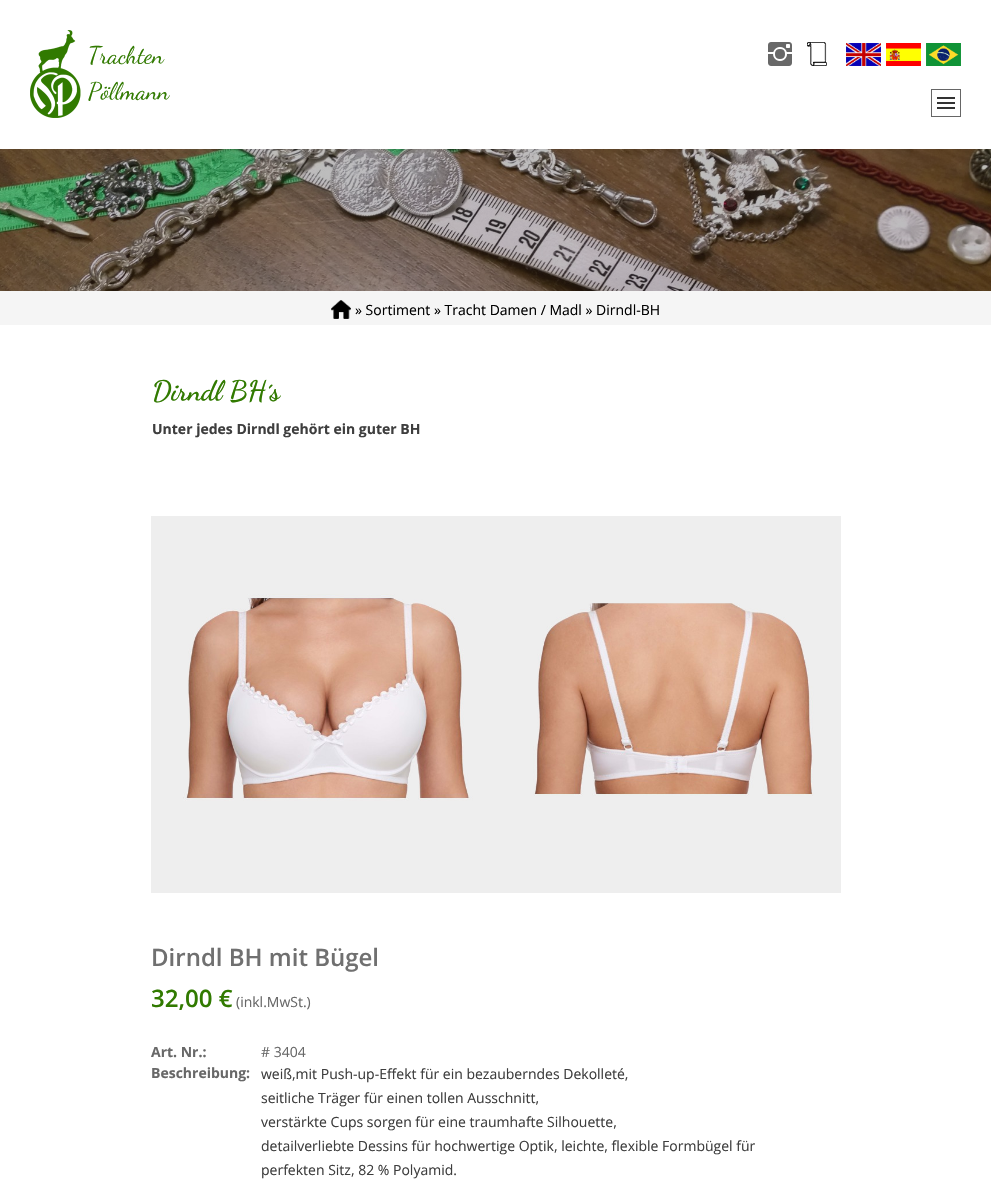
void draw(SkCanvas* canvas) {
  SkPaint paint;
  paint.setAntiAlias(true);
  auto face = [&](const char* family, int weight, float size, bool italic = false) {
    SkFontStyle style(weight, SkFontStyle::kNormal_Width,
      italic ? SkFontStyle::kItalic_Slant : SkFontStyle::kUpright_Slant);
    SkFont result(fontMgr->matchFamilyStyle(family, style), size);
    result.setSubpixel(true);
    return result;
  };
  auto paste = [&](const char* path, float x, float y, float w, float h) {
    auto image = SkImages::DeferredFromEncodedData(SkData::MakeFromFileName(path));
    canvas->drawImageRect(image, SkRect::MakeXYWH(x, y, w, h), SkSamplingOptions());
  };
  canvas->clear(0xffffffff);
  paste("img/1.png", 30, 30, 51, 88);
  paste("img/2.png", 768, 42, 24, 24);
  paste("img/3.png", 807, 42, 20, 24);
  paste("img/4.png", 846, 43, 35, 23);
  paste("img/5.png", 886, 43, 35, 23);
  paste("img/6.png", 926, 43, 35, 23);
  paint.setStroke(true);
  paint.setStrokeWidth(1);
  paint.setColor(0xff666666);
  canvas->drawRect(SkRect::MakeXYWH(931.5f, 89.5f, 29, 27), paint);
  paint.setStroke(false);
  {
    const struct { float x, y, w, h; SkColor color; } items[] = {
      {937, 97, 18, 2, 0xff333333},
      {937, 102, 18, 2, 0xff333333},
      {937, 107, 18, 2, 0xff333333},
    };
    for (auto [x, y, w, h, color] : items) {
      paint.setColor(color);
      canvas->drawRect(SkRect::MakeXYWH(x, y, w, h), paint);
    }
  }
  paste("img/7.png", 0, 149, 991, 142);
  paint.setColor(0xfff5f5f5);
  canvas->drawRect(SkRect::MakeXYWH(0, 291, 991, 34), paint);
  paste("img/8.png", 331, 300, 20, 19);
  paste("img/9.png", 151, 516, 690, 377);
  auto f0 = face("Dancing Script", 400, 24);
  paint.setColor(0xff317a00);
  canvas->drawString("Trachten", 88, 63, f0, paint);
  canvas->drawString("Pöllmann", 88, 99, f0, paint);
  auto f1 = face("Open Sans", 400, 14);
  paint.setColor(0xff000000);
  canvas->drawString("» Sortiment » Tracht Damen / Madl » Dirndl-BH", 355, 315, f1, paint);
  auto f2 = face("Dancing Script", 700, 28);
  paint.setColor(0xff317a00);
  canvas->drawString("Dirndl BH´s", 152, 400, f2, paint);
  auto f3 = face("Open Sans", 700, 14);
  paint.setColor(0xff3e3e3e);
  canvas->drawString("Unter jedes Dirndl gehört ein guter BH", 152, 434, f3, paint);
  auto f4 = face("Open Sans", 600, 24);
  paint.setColor(0xff707070);
  canvas->drawString("Dirndl BH mit Bügel", 151, 966, f4, paint);
  paint.setColor(0xff317a00);
  canvas->drawString("32,00 €", 151, 1007, f4, paint);
  paint.setColor(0xff686868);
  canvas->drawString("(inkl.MwSt.)", 236, 1007, f1, paint);
  canvas->drawString("Art. Nr.:", 151, 1057, f3, paint);
  canvas->drawString("# 3404", 261, 1057, f1, paint);
  canvas->drawString("Beschreibung:", 151, 1078, f3, paint);
  paint.setColor(0xff3e3e3e);
  {
    const struct { const char* s; float x, y; } items[] = {
      {"weiß,mit Push-up-Effekt für ein bezauberndes Dekolleté,", 261, 1079},
      {"seitliche Träger für einen tollen Ausschnitt,", 261, 1103},
      {"verstärkte Cups sorgen für eine traumhafte Silhouette,", 261, 1127},
      {"detailverliebte Dessins für hochwertige Optik, leichte, flexible Formbügel für", 261, 1151},
      {"perfekten Sitz, 82 % Polyamid.", 261, 1175},
    };
    for (auto [s, x, y] : items) {
      canvas->drawString(s, x, y, f1, paint);
    }
  }
}
